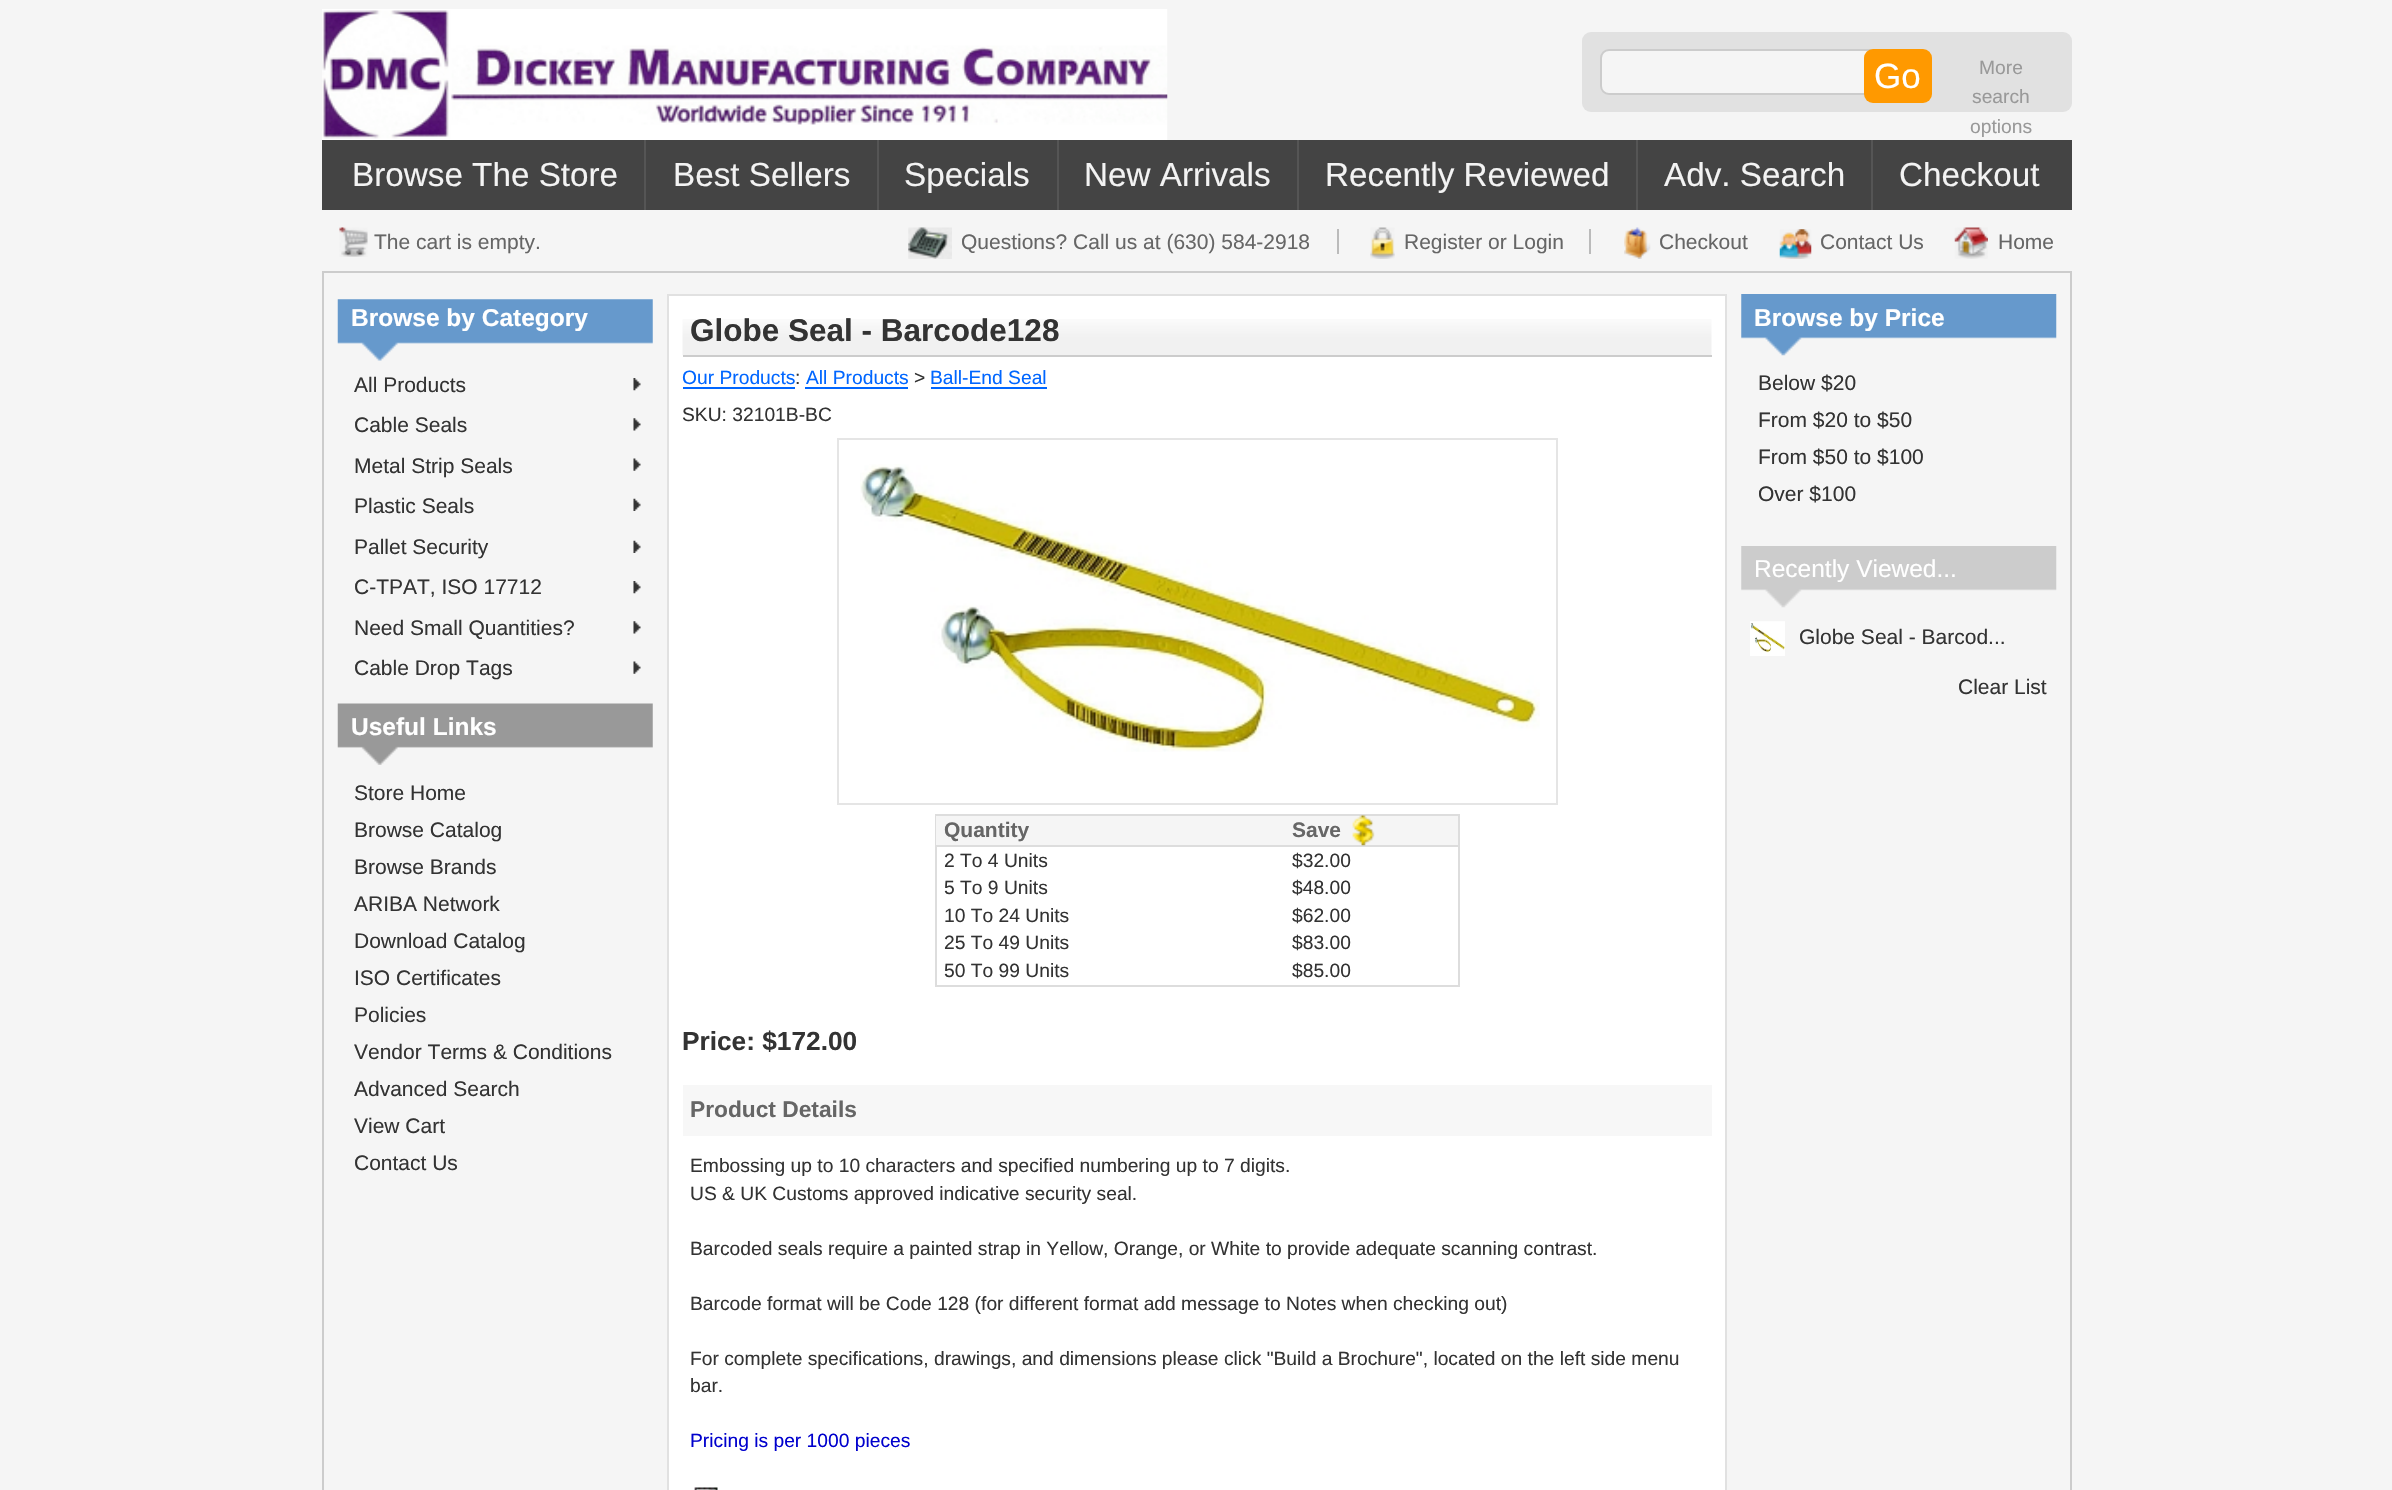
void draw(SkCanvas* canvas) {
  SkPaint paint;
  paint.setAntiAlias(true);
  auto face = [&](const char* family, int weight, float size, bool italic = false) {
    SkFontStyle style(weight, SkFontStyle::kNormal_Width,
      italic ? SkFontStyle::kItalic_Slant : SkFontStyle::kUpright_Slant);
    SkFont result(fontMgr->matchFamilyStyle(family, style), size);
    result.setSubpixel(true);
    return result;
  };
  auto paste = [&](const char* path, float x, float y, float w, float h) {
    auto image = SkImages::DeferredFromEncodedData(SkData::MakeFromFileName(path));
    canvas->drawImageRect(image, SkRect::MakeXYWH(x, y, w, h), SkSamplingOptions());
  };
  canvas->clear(0xfff5f5f5);
  paste("img/1.png", 322, 9, 846, 131);
  paint.setColor(0xffe1e1e1);
  canvas->drawRoundRect(SkRect::MakeXYWH(1582, 32, 490, 80), 9, 9, paint);
  paint.setColor(0xfff5f5f5);
  canvas->drawRoundRect(SkRect::MakeXYWH(1601, 50, 278, 44), 8, 8, paint);
  paint.setStroke(true);
  paint.setStrokeWidth(2);
  paint.setColor(0xffcccccc);
  canvas->drawRoundRect(SkRect::MakeXYWH(1601, 50, 278, 44), 8, 8, paint);
  paint.setStroke(false);
  paint.setColor(0xffff9900);
  canvas->drawRoundRect(SkRect::MakeXYWH(1864, 49, 68, 54), 9, 9, paint);
  {
    const struct { float x, y, w, h; SkColor color; } items[] = {
      {322, 140, 1750, 70, 0xff444444},
      {644, 140, 2, 70, 0xff555555},
      {877, 140, 2, 70, 0xff555555},
      {1057, 140, 2, 70, 0xff555555},
      {1297, 140, 2, 70, 0xff555555},
      {1636, 140, 2, 70, 0xff555555},
      {1871, 140, 2, 70, 0xff555555},
    };
    for (auto [x, y, w, h, color] : items) {
      paint.setColor(color);
      canvas->drawRect(SkRect::MakeXYWH(x, y, w, h), paint);
    }
  }
  paste("img/2.png", 339, 227, 29, 30);
  paste("img/3.png", 908, 227, 44, 32);
  paint.setColor(0xffbbbbbb);
  canvas->drawRect(SkRect::MakeXYWH(1337, 229, 2, 25), paint);
  paste("img/4.png", 1370, 227, 25, 32);
  canvas->drawRect(SkRect::MakeXYWH(1589, 229, 2, 25), paint);
  paste("img/5.png", 1624, 227, 27, 32);
  paste("img/6.png", 1779, 229, 33, 30);
  paste("img/7.png", 1954, 227, 34, 32);
  paint.setStroke(true);
  paint.setColor(0xffcccccc);
  canvas->drawRect(SkRect::MakeXYWH(323, 272, 1748, 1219), paint);
  paste("img/8.png", 337, 299, 316, 62);
  paste("img/9.png", 633, 378, 8, 13);
  paste("img/10.png", 633, 418, 8, 13);
  paste("img/11.png", 633, 458, 8, 13);
  paste("img/12.png", 633, 498, 8, 13);
  paste("img/12.png", 633, 540, 8, 13);
  paste("img/9.png", 633, 581, 8, 13);
  paste("img/10.png", 633, 621, 8, 13);
  paste("img/11.png", 633, 661, 8, 13);
  paste("img/13.png", 337, 703, 316, 62);
  paint.setStroke(false);
  paint.setColor(0xffffffff);
  canvas->drawRect(SkRect::MakeXYWH(668, 295, 1058, 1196), paint);
  paint.setStroke(true);
  paint.setColor(0xffe1e1e1);
  canvas->drawRect(SkRect::MakeXYWH(668, 295, 1058, 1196), paint);
  paste("img/14.png", 682, 319, 1030, 37);
  paint.setStroke(false);
  {
    const struct { float x, y, w, h; SkColor color; } items[] = {
      {683, 355, 1029, 2, 0xffcccccc},
      {683, 387, 112, 2, 0xff0066ff},
      {805, 387, 103, 2, 0xff0066ff},
      {931, 387, 116, 2, 0xff0066ff},
    };
    for (auto [x, y, w, h, color] : items) {
      paint.setColor(color);
      canvas->drawRect(SkRect::MakeXYWH(x, y, w, h), paint);
    }
  }
  paint.setStroke(true);
  paint.setColor(0xffe5e5e5);
  canvas->drawRect(SkRect::MakeXYWH(838, 439, 719, 365), paint);
  paste("img/15.png", 860, 464, 680, 288);
  paint.setColor(0xffdddddd);
  canvas->drawRect(SkRect::MakeXYWH(936, 815, 523, 171), paint);
  paint.setStroke(false);
  paint.setColor(0xfff5f5f5);
  canvas->drawRect(SkRect::MakeXYWH(936, 816, 522, 29), paint);
  paint.setColor(0xffdddddd);
  canvas->drawRect(SkRect::MakeXYWH(936, 845, 522, 2), paint);
  paste("img/16.png", 1352, 815, 23, 31);
  paint.setColor(0xfff7f7f7);
  canvas->drawRect(SkRect::MakeXYWH(683, 1085, 1029, 51), paint);
  paste("img/17.png", 694, 1487, 24, 3);
  paste("img/18.png", 1741, 294, 316, 62);
  paste("img/19.png", 1741, 546, 316, 62);
  paste("img/20.png", 1750, 621, 35, 35);
  auto f0 = face("Liberation Sans", 400, 35);
  paint.setColor(0xffffffff);
  canvas->drawString("Go", 1874, 88, f0, paint);
  auto f1 = face("Liberation Sans", 400, 19.25f);
  paint.setColor(0xff999999);
  {
    const struct { const char* s; float x, y; } items[] = {
      {"More", 1979, 74},
      {"search", 1972, 103},
      {"options", 1970, 133},
    };
    for (auto [s, x, y] : items) {
      canvas->drawString(s, x, y, f1, paint);
    }
  }
  auto f2 = face("Liberation Sans", 400, 33.25f);
  paint.setColor(0xfff3f3f3);
  {
    const struct { const char* s; float x, y; } items[] = {
      {"Browse The Store", 352, 186},
      {"Best Sellers", 673, 186},
      {"Specials", 904, 186},
      {"New Arrivals", 1084, 186},
      {"Recently Reviewed", 1325, 186},
      {"Adv. Search", 1664, 186},
      {"Checkout", 1899, 186},
    };
    for (auto [s, x, y] : items) {
      canvas->drawString(s, x, y, f2, paint);
    }
  }
  auto f3 = face("Liberation Sans", 400, 21);
  paint.setColor(0xff666666);
  {
    const struct { const char* s; float x, y; } items[] = {
      {"The cart is empty.", 374, 249},
      {"Questions? Call us at (630) 584-2918", 961, 249},
      {"Register or Login", 1404, 249},
      {"Checkout", 1659, 249},
      {"Contact Us", 1820, 249},
      {"Home", 1998, 249},
    };
    for (auto [s, x, y] : items) {
      canvas->drawString(s, x, y, f3, paint);
    }
  }
  auto f4 = face("Liberation Sans", 700, 24.5f);
  paint.setColor(0xffffffff);
  canvas->drawString("Browse by Category", 351, 326, f4, paint);
  paint.setColor(0xff333333);
  {
    const struct { const char* s; float x, y; } items[] = {
      {"All Products", 354, 392},
      {"Cable Seals", 354, 432},
      {"Metal Strip Seals", 354, 473},
      {"Plastic Seals", 354, 513},
      {"Pallet Security", 354, 554},
      {"C-TPAT, ISO 17712", 354, 594},
      {"Need Small Quantities?", 354, 635},
      {"Cable Drop Tags", 354, 675},
    };
    for (auto [s, x, y] : items) {
      canvas->drawString(s, x, y, f3, paint);
    }
  }
  paint.setColor(0xffffffff);
  canvas->drawString("Useful Links", 351, 735, f4, paint);
  paint.setColor(0xff333333);
  {
    const struct { const char* s; float x, y; } items[] = {
      {"Store Home", 354, 800},
      {"Browse Catalog", 354, 837},
      {"Browse Brands", 354, 874},
      {"ARIBA Network", 354, 911},
      {"Download Catalog", 354, 948},
      {"ISO Certificates", 354, 985},
      {"Policies", 354, 1022},
      {"Vendor Terms & Conditions", 354, 1059},
      {"Advanced Search", 354, 1096},
      {"View Cart", 354, 1133},
      {"Contact Us", 354, 1170},
    };
    for (auto [s, x, y] : items) {
      canvas->drawString(s, x, y, f3, paint);
    }
  }
  auto f5 = face("Liberation Sans", 700, 31.5f);
  canvas->drawString("Globe Seal - Barcode128", 690, 341, f5, paint);
  paint.setColor(0xff0066ff);
  canvas->drawString("Our Products", 682, 384, f1, paint);
  paint.setColor(0xff333333);
  canvas->drawString(":", 795, 384, f1, paint);
  paint.setColor(0xff0066ff);
  canvas->drawString("All Products", 806, 384, f1, paint);
  paint.setColor(0xff333333);
  canvas->drawString(">", 914, 384, f1, paint);
  paint.setColor(0xff0066ff);
  canvas->drawString("Ball-End Seal", 930, 384, f1, paint);
  paint.setColor(0xff333333);
  canvas->drawString("SKU: 32101B-BC", 682, 421, f1, paint);
  auto f6 = face("Liberation Sans", 700, 21);
  paint.setColor(0xff666666);
  canvas->drawString("Quantity", 944, 837, f6, paint);
  canvas->drawString("Save", 1292, 837, f6, paint);
  paint.setColor(0xff333333);
  {
    const struct { const char* s; float x, y; } items[] = {
      {"2 To 4 Units", 944, 867},
      {"$32.00", 1292, 867},
      {"5 To 9 Units", 944, 894},
      {"$48.00", 1292, 894},
      {"10 To 24 Units", 944, 922},
      {"$62.00", 1292, 922},
      {"25 To 49 Units", 944, 949},
      {"$83.00", 1292, 949},
      {"50 To 99 Units", 944, 977},
      {"$85.00", 1292, 977},
    };
    for (auto [s, x, y] : items) {
      canvas->drawString(s, x, y, f1, paint);
    }
  }
  auto f7 = face("Liberation Sans", 700, 26.25f);
  canvas->drawString("Price: $172.00", 682, 1050, f7, paint);
  auto f8 = face("Liberation Sans", 700, 22.75f);
  paint.setColor(0xff666666);
  canvas->drawString("Product Details", 690, 1117, f8, paint);
  paint.setColor(0xff333333);
  {
    const struct { const char* s; float x, y; } items[] = {
      {"Embossing up to 10 characters and specified numbering up to 7 digits.", 690, 1172},
      {"US & UK Customs approved indicative security seal.", 690, 1200},
      {"Barcoded seals require a painted strap in Yellow, Orange, or White to provide adequate scanning contrast.", 690, 1255},
      {"Barcode format will be Code 128 (for different format add message to Notes when checking out)", 690, 1310},
      {"For complete specifications, drawings, and dimensions please click \"Build a Brochure\", located on the left side menu", 690, 1365},
      {"bar.", 690, 1392},
    };
    for (auto [s, x, y] : items) {
      canvas->drawString(s, x, y, f1, paint);
    }
  }
  paint.setColor(0xff0000cd);
  canvas->drawString("Pricing is per 1000 pieces", 690, 1447, f1, paint);
  paint.setColor(0xffffffff);
  canvas->drawString("Browse by Price", 1754, 326, f4, paint);
  paint.setColor(0xff333333);
  {
    const struct { const char* s; float x, y; } items[] = {
      {"Below $20", 1758, 390},
      {"From $20 to $50", 1758, 427},
      {"From $50 to $100", 1758, 464},
      {"Over $100", 1758, 501},
    };
    for (auto [s, x, y] : items) {
      canvas->drawString(s, x, y, f3, paint);
    }
  }
  auto f9 = face("Liberation Sans", 400, 24.5f);
  paint.setColor(0xffffffff);
  canvas->drawString("Recently Viewed...", 1754, 577, f9, paint);
  paint.setColor(0xff333333);
  canvas->drawString("Globe Seal - Barcod...", 1799, 644, f3, paint);
  canvas->drawString("Clear List", 1958, 694, f3, paint);
}
